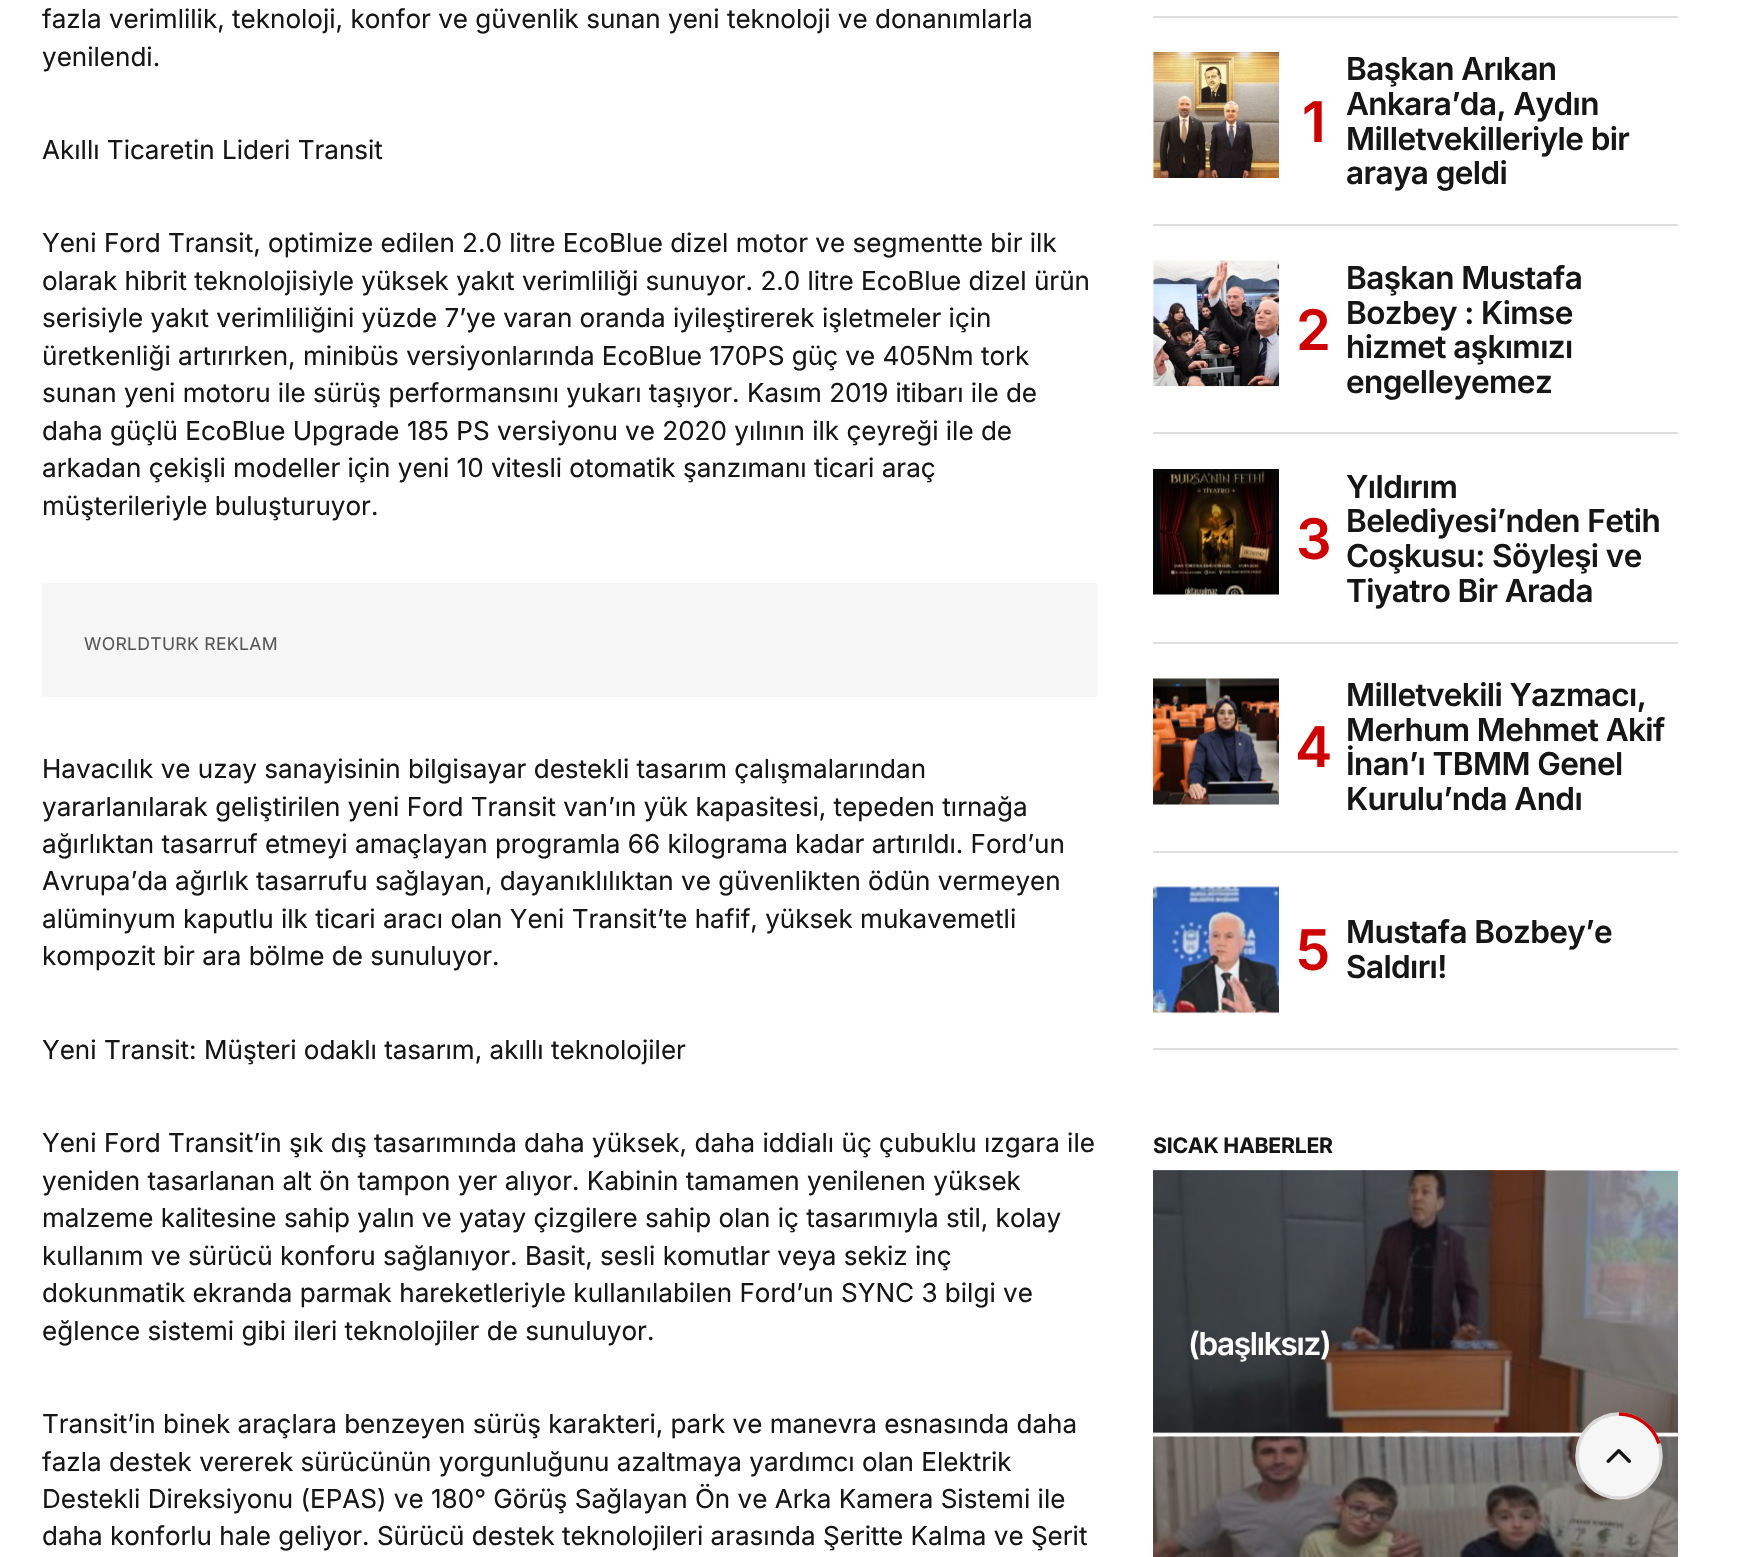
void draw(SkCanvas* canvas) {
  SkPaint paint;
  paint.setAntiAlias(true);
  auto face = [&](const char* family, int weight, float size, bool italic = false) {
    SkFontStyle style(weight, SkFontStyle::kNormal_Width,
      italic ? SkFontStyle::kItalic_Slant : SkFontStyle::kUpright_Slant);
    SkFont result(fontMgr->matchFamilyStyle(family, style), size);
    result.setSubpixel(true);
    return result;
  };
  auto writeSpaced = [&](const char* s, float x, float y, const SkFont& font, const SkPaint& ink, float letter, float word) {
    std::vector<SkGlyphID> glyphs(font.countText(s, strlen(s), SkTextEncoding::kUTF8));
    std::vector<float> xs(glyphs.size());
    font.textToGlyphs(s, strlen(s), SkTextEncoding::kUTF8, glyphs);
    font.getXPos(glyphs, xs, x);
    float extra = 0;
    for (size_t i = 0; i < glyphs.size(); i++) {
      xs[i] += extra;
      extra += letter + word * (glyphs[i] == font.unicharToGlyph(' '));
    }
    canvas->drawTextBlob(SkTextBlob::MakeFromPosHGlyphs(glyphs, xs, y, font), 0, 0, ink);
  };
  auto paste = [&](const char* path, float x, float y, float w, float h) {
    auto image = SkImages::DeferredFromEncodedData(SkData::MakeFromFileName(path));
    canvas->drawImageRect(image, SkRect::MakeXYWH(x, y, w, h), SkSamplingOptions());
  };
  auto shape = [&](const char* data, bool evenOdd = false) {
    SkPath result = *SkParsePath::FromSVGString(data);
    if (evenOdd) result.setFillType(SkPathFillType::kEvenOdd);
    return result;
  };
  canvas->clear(0xffffffff);
  {
    const struct { float x, y, w, h; SkColor color; } items[] = {
      {1153, 1432, 525, 1, 0xffababab},
      {42, 583, 1055, 114, 0xfff6f6f6},
      {1153, 16, 525, 2, 0xffe0e0e0},
      {1153, 1048, 525, 2, 0xffe0e0e0},
    };
    for (auto [x, y, w, h, color] : items) {
      paint.setColor(color);
      canvas->drawRect(SkRect::MakeXYWH(x, y, w, h), paint);
    }
  }
  paste("img/1.png", 1153, 52, 127, 126);
  canvas->drawRect(SkRect::MakeXYWH(1153, 224, 525, 2), paint);
  paste("img/2.png", 1153, 260, 127, 127);
  canvas->drawRect(SkRect::MakeXYWH(1153, 432, 525, 2), paint);
  paste("img/3.png", 1153, 469, 126, 126);
  canvas->drawRect(SkRect::MakeXYWH(1153, 642, 525, 2), paint);
  paste("img/4.png", 1153, 678, 126, 127);
  canvas->drawRect(SkRect::MakeXYWH(1153, 851, 525, 2), paint);
  paste("img/5.png", 1153, 886, 126, 128);
  paste("img/6.png", 1153, 1170, 525, 264);
  paste("img/7.png", 1153, 1436, 525, 121);
  paint.setColor(0xfff6f6f6);
  canvas->drawCircle(1619, 1456, 42, paint);
  paste("img/8.png", 1606, 1449, 25, 14);
  paint.setStroke(true);
  paint.setStrokeWidth(3.5f);
  paint.setColor(0xffd9d9d9);
  canvas->drawPath(shape("M1619 1414C1642 1414 1661 1433 1661 1456C1661 1479 1642 1498 1619 1498C1595.5 1498 1577 1479 1577 1456C1577 1433 1595.5 1414 1619 1414"), paint);
  paint.setColor(0xffcc0100);
  canvas->drawPath(shape("M1619 1414C1637.5 1414 1653.5 1426.5 1659 1443.5"), paint);
  auto f0 = face("Inter", 400, 26.05f);
  paint.setStroke(false);
  paint.setColor(0xff161616);
  {
    const struct { const char* s; float x, y; } items[] = {
      {"fazla verimlilik, teknoloji, konfor ve güvenlik sunan yeni teknoloji ve donanımlarla", 42, 28},
      {"yenilendi.", 42, 66},
      {"Akıllı Ticaretin Lideri Transit", 42, 159},
      {"Yeni Ford Transit, optimize edilen 2.0 litre EcoBlue dizel motor ve segmentte bir ilk", 42, 252},
      {"olarak hibrit teknolojisiyle yüksek yakıt verimliliği sunuyor. 2.0 litre EcoBlue dizel ürün", 42, 290},
      {"serisiyle yakıt verimliliğini yüzde 7’ye varan oranda iyileştirerek işletmeler için", 42, 327},
      {"üretkenliği artırırken, minibüs versiyonlarında EcoBlue 170PS güç ve 405Nm tork", 42, 365},
      {"sunan yeni motoru ile sürüş performansını yukarı taşıyor. Kasım 2019 itibarı ile de", 42, 402},
      {"daha güçlü EcoBlue Upgrade 185 PS versiyonu ve 2020 yılının ilk çeyreği ile de", 42, 440},
      {"arkadan çekişli modeller için yeni 10 vitesli otomatik şanzımanı ticari araç", 42, 477},
      {"müşterileriyle buluşturuyor.", 42, 515},
    };
    for (auto [s, x, y] : items) {
      canvas->drawString(s, x, y, f0, paint);
    }
  }
  auto f1 = face("Inter", 400, 17.6f);
  paint.setColor(0xff585858);
  writeSpaced("WORLDTURK REKLAM", 84, 650, f1, paint, 0.3f, 0);
  paint.setColor(0xff161616);
  {
    const struct { const char* s; float x, y; } items[] = {
      {"Havacılık ve uzay sanayisinin bilgisayar destekli tasarım çalışmalarından", 42, 778},
      {"yararlanılarak geliştirilen yeni Ford Transit van’ın yük kapasitesi, tepeden tırnağa", 42, 816},
      {"ağırlıktan tasarruf etmeyi amaçlayan programla 66 kilograma kadar artırıldı. Ford’un", 42, 853},
      {"Avrupa’da ağırlık tasarrufu sağlayan, dayanıklılıktan ve güvenlikten ödün vermeyen", 42, 890},
      {"alüminyum kaputlu ilk ticari aracı olan Yeni Transit’te hafif, yüksek mukavemetli", 42, 928},
      {"kompozit bir ara bölme de sunuluyor.", 42, 965},
      {"Yeni Transit: Müşteri odaklı tasarım, akıllı teknolojiler", 42, 1059},
      {"Yeni Ford Transit’in şık dış tasarımında daha yüksek, daha iddialı üç çubuklu ızgara ile", 42, 1152},
      {"yeniden tasarlanan alt ön tampon yer alıyor. Kabinin tamamen yenilenen yüksek", 42, 1190},
      {"malzeme kalitesine sahip yalın ve yatay çizgilere sahip olan iç tasarımıyla stil, kolay", 42, 1227},
      {"kullanım ve sürücü konforu sağlanıyor. Basit, sesli komutlar veya sekiz inç", 42, 1265},
      {"dokunmatik ekranda parmak hareketleriyle kullanılabilen Ford’un SYNC 3 bilgi ve", 42, 1302},
      {"eğlence sistemi gibi ileri teknolojiler de sunuluyor.", 42, 1340},
      {"Transit’in binek araçlara benzeyen sürüş karakteri, park ve manevra esnasında daha", 42, 1433},
      {"fazla destek vererek sürücünün yorgunluğunu azaltmaya yardımcı olan Elektrik", 42, 1471},
      {"Destekli Direksiyonu (EPAS) ve 180° Görüş Sağlayan Ön ve Arka Kamera Sistemi ile", 42, 1508},
      {"daha konforlu hale geliyor. Sürücü destek teknolojileri arasında Şeritte Kalma ve Şerit", 42, 1545},
    };
    for (auto [s, x, y] : items) {
      canvas->drawString(s, x, y, f0, paint);
    }
  }
  auto f2 = face("Inter", 600, 56);
  paint.setColor(0xffcc0100);
  writeSpaced("1", 1302, 142, f2, paint, -2, 0);
  auto f3 = face("Inter", 600, 31.5f);
  paint.setColor(0xff161616);
  {
    const struct { const char* s; float x, y; } items[] = {
      {"Başkan Arıkan", 1346, 80},
      {"Ankara’da, Aydın", 1346, 115},
      {"Milletvekilleriyle bir", 1346, 150},
      {"araya geldi", 1346, 184},
    };
    for (auto [s, x, y] : items) {
      writeSpaced(s, x, y, f3, paint, -0.6f, 0);
    }
  }
  paint.setColor(0xffcc0100);
  writeSpaced("2", 1296, 350, f2, paint, -2, 0);
  paint.setColor(0xff161616);
  {
    const struct { const char* s; float x, y; } items[] = {
      {"Başkan Mustafa", 1346, 289},
      {"Bozbey : Kimse", 1346, 324},
      {"hizmet aşkımızı", 1346, 358},
      {"engelleyemez", 1346, 393},
    };
    for (auto [s, x, y] : items) {
      writeSpaced(s, x, y, f3, paint, -0.6f, 0);
    }
  }
  paint.setColor(0xffcc0100);
  writeSpaced("3", 1296, 559, f2, paint, -2, 0);
  paint.setColor(0xff161616);
  {
    const struct { const char* s; float x, y; } items[] = {
      {"Yıldırım", 1346, 498},
      {"Belediyesi’nden Fetih", 1346, 532},
      {"Coşkusu: Söyleşi ve", 1346, 567},
      {"Tiyatro Bir Arada", 1346, 602},
    };
    for (auto [s, x, y] : items) {
      writeSpaced(s, x, y, f3, paint, -0.6f, 0);
    }
  }
  paint.setColor(0xffcc0100);
  writeSpaced("4", 1295, 767, f2, paint, -2, 0);
  paint.setColor(0xff161616);
  {
    const struct { const char* s; float x, y; } items[] = {
      {"Milletvekili Yazmacı,", 1346, 706},
      {"Merhum Mehmet Akif", 1346, 741},
      {"İnan’ı TBMM Genel", 1346, 775},
      {"Kurulu’nda Andı", 1346, 810},
    };
    for (auto [s, x, y] : items) {
      writeSpaced(s, x, y, f3, paint, -0.6f, 0);
    }
  }
  paint.setColor(0xffcc0100);
  writeSpaced("5", 1296, 970, f2, paint, -2, 0);
  paint.setColor(0xff161616);
  writeSpaced("Mustafa Bozbey’e", 1346, 943, f3, paint, -0.6f, 0);
  writeSpaced("Saldırı!", 1346, 978, f3, paint, -0.6f, 0);
  auto f4 = face("Inter", 700, 21.25f);
  writeSpaced("SICAK HABERLER", 1153, 1153, f4, paint, -0.25f, 0);
  paint.setColor(0xffffffff);
  writeSpaced("(başlıksız)", 1188, 1355, f3, paint, -1.25f, 0);
}
